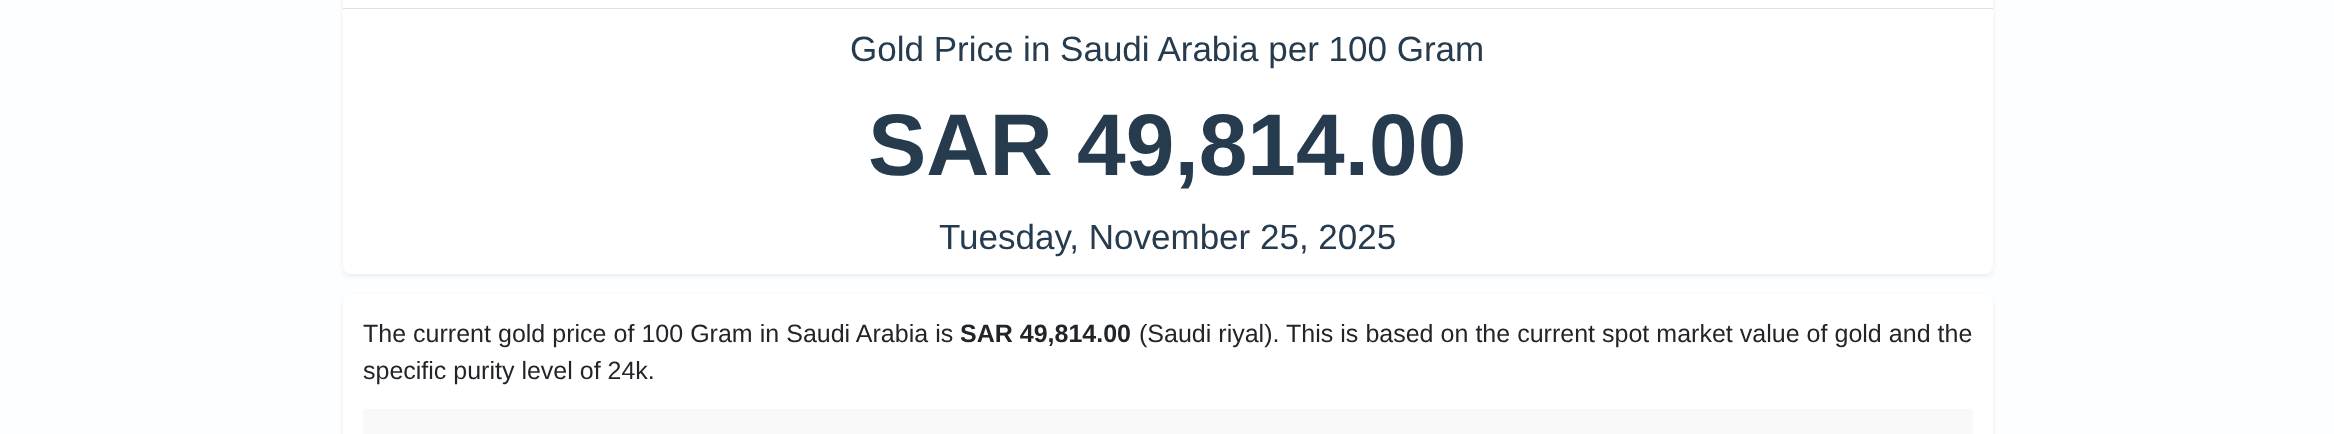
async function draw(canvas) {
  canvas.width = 2334;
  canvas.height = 434;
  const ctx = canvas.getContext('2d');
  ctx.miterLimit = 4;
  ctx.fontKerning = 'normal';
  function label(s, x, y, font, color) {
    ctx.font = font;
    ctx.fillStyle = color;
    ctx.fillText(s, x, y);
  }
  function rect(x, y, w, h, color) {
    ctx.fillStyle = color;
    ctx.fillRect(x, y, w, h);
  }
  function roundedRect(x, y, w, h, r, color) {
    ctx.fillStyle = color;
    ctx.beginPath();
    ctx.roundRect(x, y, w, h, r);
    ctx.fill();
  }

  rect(0, 0, 2334, 434, '#fcfeff');
  ctx.fillStyle = '#00000012';
  ctx.filter = 'blur(2.5px)';
  ctx.beginPath();
  ctx.roundRect(343, -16, 1650, 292, 8);
  ctx.fill();
  ctx.filter = 'none';
  roundedRect(343, -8, 1650, 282, 8, '#fff');
  rect(343, 8, 1650, 1, '#dee2e6');
  label('Gold Price in Saudi Arabia per 100 Gram', 850, 61, '35px Liberation Sans', '#263c4e');
  label('SAR 49,814.00', 868, 175, 'bold 87.5px Liberation Sans', '#263c4e');
  label('Tuesday, November 25, 2025', 939, 249, '35px Liberation Sans', '#263c4e');
  ctx.fillStyle = '#00000012';
  ctx.filter = 'blur(2.5px)';
  ctx.beginPath();
  ctx.roundRect(343, 296, 1650, 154, 8);
  ctx.fill();
  ctx.filter = 'none';
  roundedRect(343, 294, 1650, 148, 8, '#fff');
  ctx.wordSpacing = '0.1px';
  label('The current gold price of 100 Gram in Saudi Arabia is', 363, 342, '25px Liberation Sans', '#212529');
  ctx.wordSpacing = '0px';
  label('SAR 49,814.00', 960, 342, 'bold 25px Liberation Sans', '#212529');
  ctx.wordSpacing = '0.1px';
  label('(Saudi riyal). This is based on the current spot market value of gold and the', 1139, 342, '25px Liberation Sans', '#212529');
  ctx.wordSpacing = '0px';
  label('specific purity level of 24k.', 363, 379, '25px Liberation Sans', '#212529');
  rect(363, 409, 1610, 25, '#f9f9f9');
}

draw(document.querySelector('canvas'));
